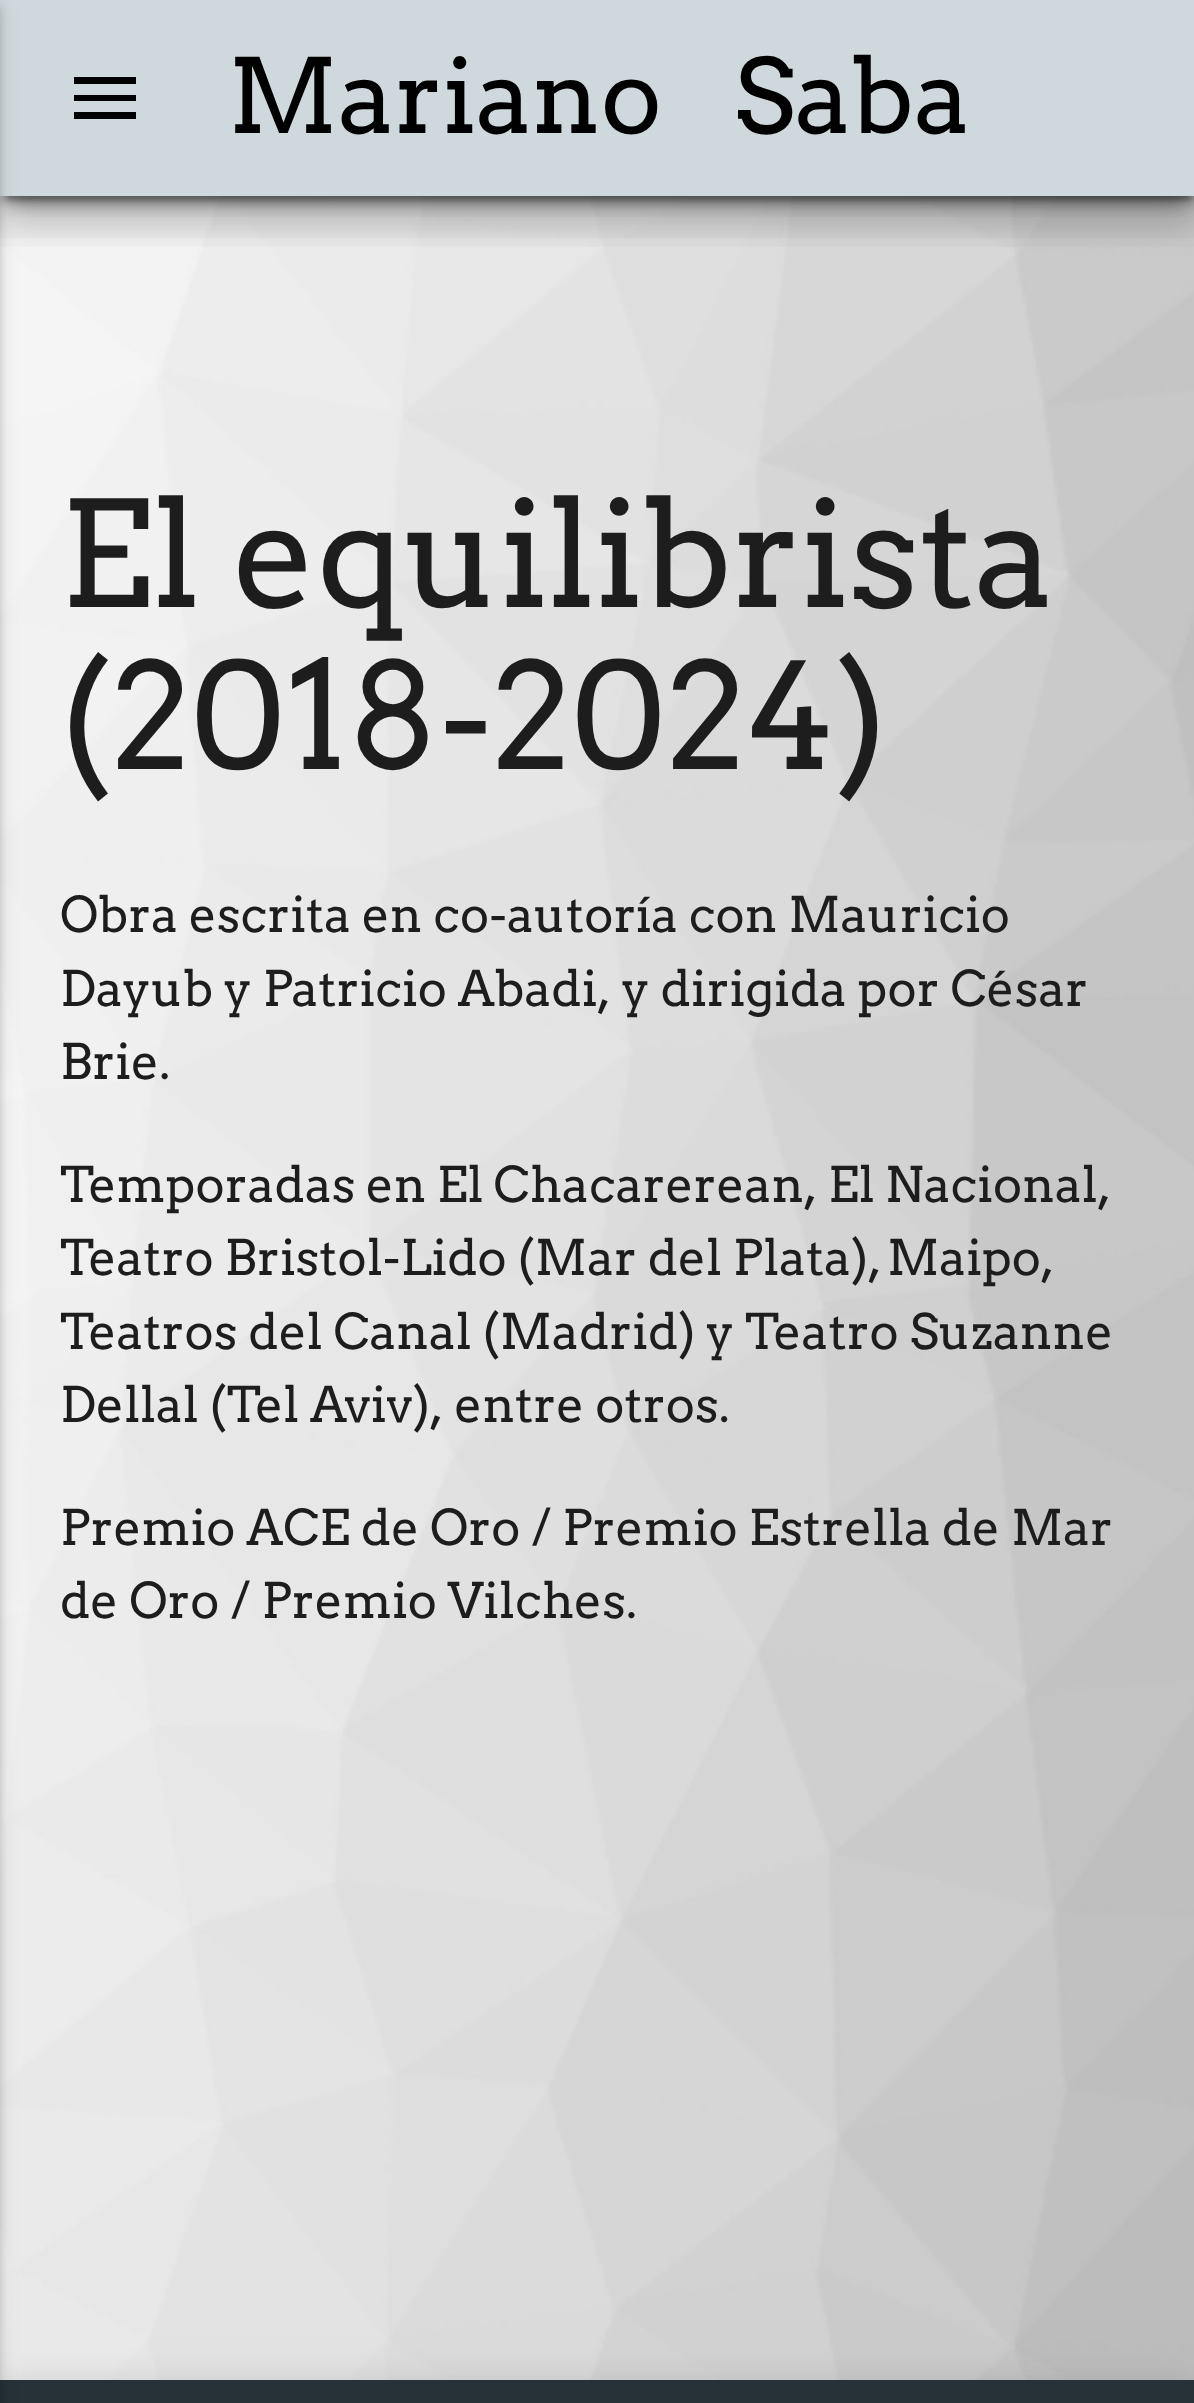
async function draw(canvas) {
  canvas.width = 1194;
  canvas.height = 2403;
  const ctx = canvas.getContext('2d');
  ctx.miterLimit = 4;
  ctx.fontKerning = 'normal';
  function label(s, x, y, font, color) {
    ctx.font = font;
    ctx.fillStyle = color;
    ctx.fillText(s, x, y);
  }
  function rect(x, y, w, h, color) {
    ctx.fillStyle = color;
    ctx.fillRect(x, y, w, h);
  }
  async function image(src, x, y, w, h) {
    const img = new Image();
    img.src = src;
    await img.decode();
    ctx.drawImage(img, x, y, w, h);
  }
  let path;

  rect(0, 0, 1194, 2403, '#fff');
  await image('assets/img1.png', 0, 196, 1194, 2184);
  await image('assets/img2.png', 0, 196, 1194, 2184);
  ctx.fillStyle = '#00000033';
  ctx.filter = 'blur(2px)';
  ctx.beginPath();
  ctx.rect(7, 18, 1183, 182);
  ctx.fill();
  ctx.filter = 'none';
  ctx.fillStyle = '#0000001f';
  ctx.filter = 'blur(9px)';
  ctx.beginPath();
  ctx.rect(0, 4, 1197, 196);
  ctx.fill();
  ctx.filter = 'none';
  ctx.fillStyle = '#00000024';
  ctx.filter = 'blur(3.5px)';
  ctx.beginPath();
  ctx.rect(0, 7, 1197, 196);
  ctx.fill();
  ctx.filter = 'none';
  rect(0, 0, 1194, 196, '#cfd8dc');
  ctx.save();
  ctx.beginPath();
  ctx.rect(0, 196, 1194, 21);
  ctx.clip();
  ctx.fillStyle = '#0000004d';
  ctx.filter = 'blur(9px)';
  ctx.beginPath();
  ctx.rect(11, 28, 1176, 175);
  ctx.fill();
  ctx.filter = 'none';
  ctx.restore();
  ctx.save();
  ctx.beginPath();
  ctx.rect(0, 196, 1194, 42);
  ctx.clip();
  ctx.fillStyle = '#0000001f';
  ctx.filter = 'blur(24.5px)';
  ctx.beginPath();
  ctx.rect(-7, 4, 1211, 210);
  ctx.fill();
  ctx.filter = 'none';
  ctx.restore();
  ctx.save();
  ctx.beginPath();
  ctx.rect(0, 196, 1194, 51);
  ctx.clip();
  ctx.fillStyle = '#00000024';
  ctx.filter = 'blur(17.5px)';
  ctx.beginPath();
  ctx.rect(-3, 25, 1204, 203);
  ctx.fill();
  ctx.filter = 'none';
  ctx.restore();
  ctx.fillStyle = '#0000001f';
  ctx.filter = 'blur(17.5px)';
  ctx.beginPath();
  ctx.rect(0, 2384, 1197, 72);
  ctx.fill();
  ctx.filter = 'none';
  rect(0, 2380, 1194, 23, '#263238');
  ctx.fillStyle = '#0000001f';
  ctx.filter = 'blur(9px)';
  ctx.beginPath();
  ctx.rect(-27, 4, 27, 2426);
  ctx.fill();
  ctx.filter = 'none';
  ctx.fillStyle = '#00000024';
  ctx.filter = 'blur(3.5px)';
  ctx.beginPath();
  ctx.rect(-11, 7, 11, 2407);
  ctx.fill();
  ctx.filter = 'none';
  ctx.fillStyle = '#000';
  path = new Path2D('M74 77H136V84H74ZM74 101V95H136V101ZM74 119V112H136V119Z');
  ctx.fill(path);
  ctx.wordSpacing = '49px';
  label('Mariano Saba', 228, 133, '103px Arvo', '#000');
  ctx.wordSpacing = '0px';
  label('El equilibrista', 60, 607, '147px Arvo', '#1d1d1d');
  label('(2018-2024)', 60, 769, '147px Arvo', '#1d1d1d');
  label('Obra escrita en co-autoría con Mauricio', 60, 932, '49px Arvo', '#1d1d1d');
  label('Dayub y Patricio Abadi, y dirigida por César', 60, 1006, '49px Arvo', '#1d1d1d');
  label('Brie.', 60, 1079, '49px Arvo', '#1d1d1d');
  ctx.wordSpacing = '-0.5px';
  label('Temporadas en El Chacarerean, El Nacional,', 60, 1202, '49px Arvo', '#1d1d1d');
  ctx.wordSpacing = '0px';
  label('Teatro Bristol-Lido (Mar del Plata),', 60, 1275, '49px Arvo', '#1d1d1d');
  label('Maipo,', 887, 1275, '49px Arvo', '#1d1d1d');
  label('Teatros del Canal (Madrid) y Teatro Suzanne', 60, 1349, '49px Arvo', '#1d1d1d');
  label('Dellal (Tel Aviv), entre otros.', 60, 1422, '49px Arvo', '#1d1d1d');
  label('Premio ACE de Oro / Premio Estrella de Mar', 60, 1545, '49px Arvo', '#1d1d1d');
  label('de Oro / Premio Vilches.', 60, 1618, '49px Arvo', '#1d1d1d');
}

draw(document.querySelector('canvas'));
